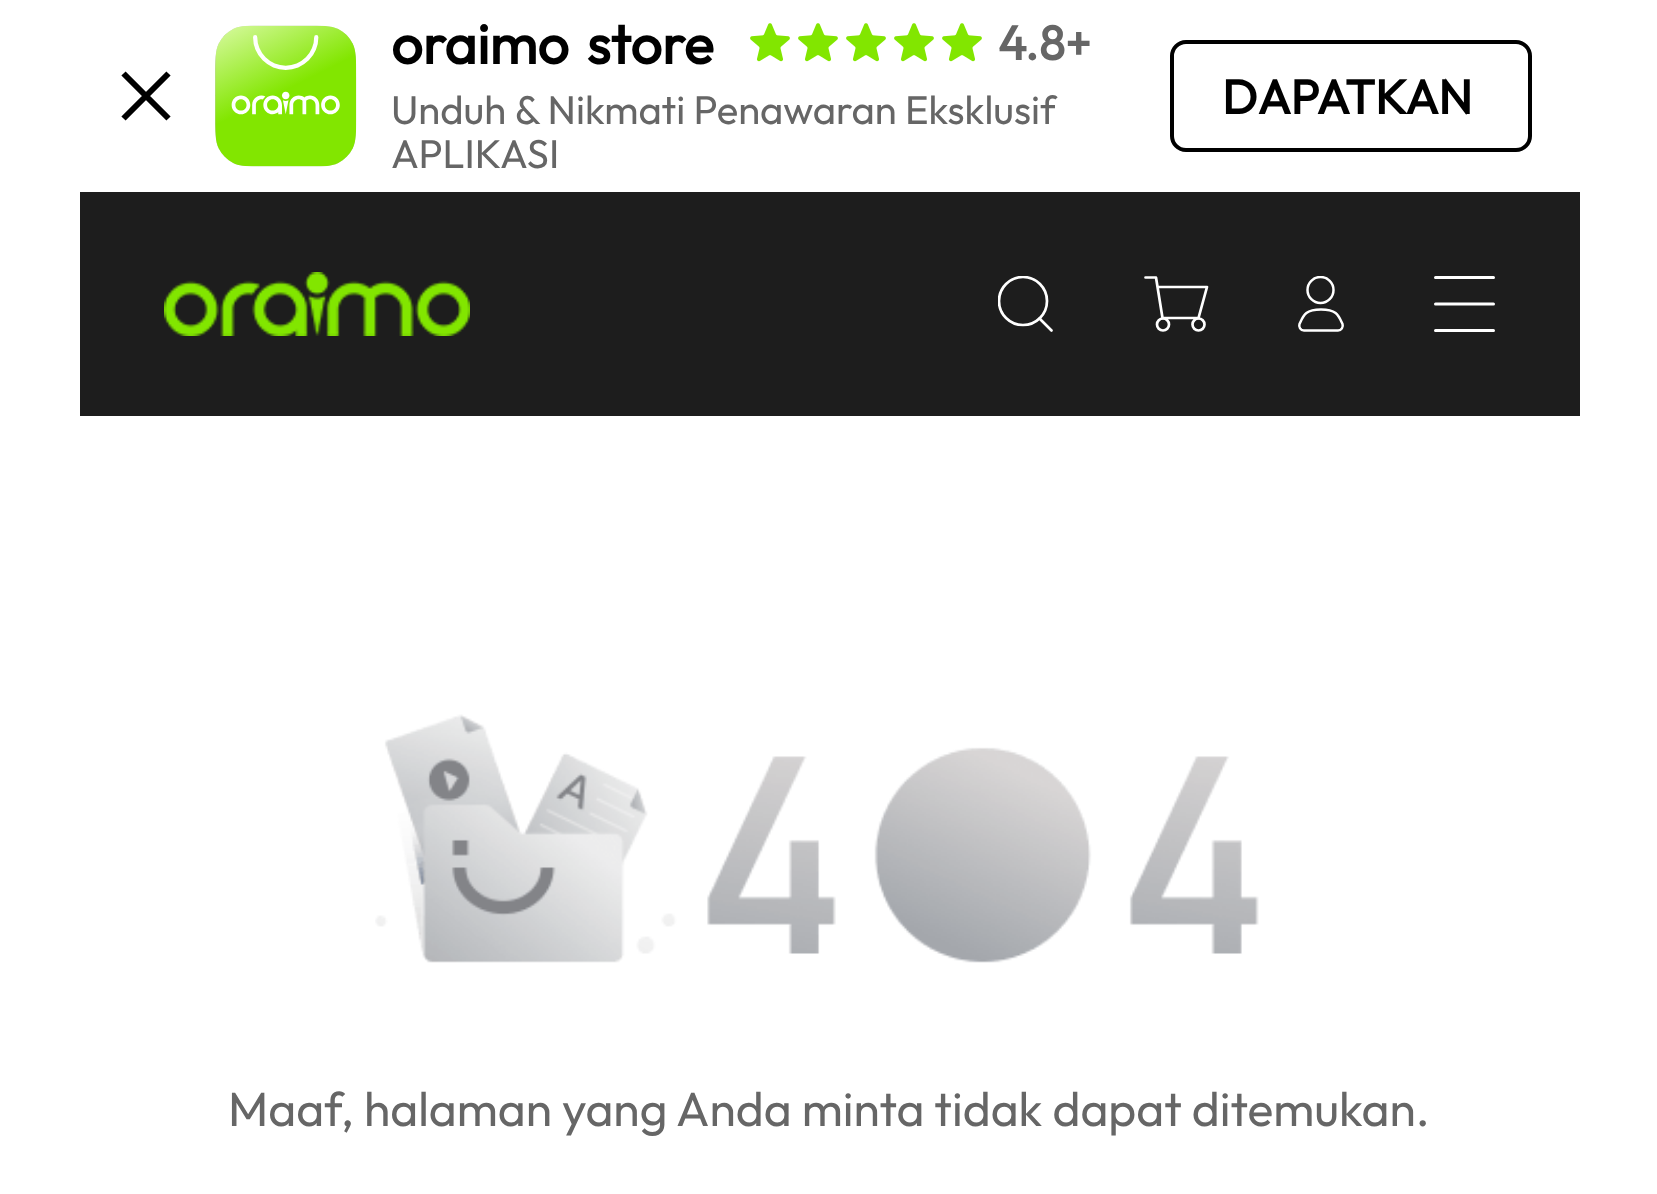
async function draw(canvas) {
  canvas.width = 1657;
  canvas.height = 1194;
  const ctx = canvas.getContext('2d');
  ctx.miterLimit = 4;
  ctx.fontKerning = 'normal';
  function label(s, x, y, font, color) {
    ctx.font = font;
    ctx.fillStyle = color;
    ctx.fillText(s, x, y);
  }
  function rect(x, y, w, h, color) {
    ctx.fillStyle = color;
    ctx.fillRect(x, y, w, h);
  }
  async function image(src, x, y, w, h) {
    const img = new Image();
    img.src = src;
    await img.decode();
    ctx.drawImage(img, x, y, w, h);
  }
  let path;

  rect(0, 0, 1657, 1194, '#fff');
  path = new Path2D('M123.5 73.5L168.5 118.5M168.5 73.5L123.5 118.5');
  ctx.strokeStyle = '#000';
  ctx.lineWidth = 6;
  ctx.stroke(path);
  await image('assets/img1.png', 215, 25, 142, 142);
  ctx.wordSpacing = '6px';
  label('oraimo store', 391, 64, 'bold 56px Outfit', '#000');
  await image('assets/img2.png', 750, 23, 40, 39);
  await image('assets/img2.png', 798, 23, 40, 39);
  await image('assets/img2.png', 846, 23, 40, 39);
  await image('assets/img2.png', 894, 23, 40, 39);
  await image('assets/img2.png', 942, 23, 40, 39);
  ctx.wordSpacing = '0px';
  label('4.8+', 998, 60, 'bold 48px Outfit', '#666');
  label('Unduh & Nikmati Penawaran Eksklusif', 391, 124, '40px Outfit', '#666');
  label('APLIKASI', 391, 168, '40px Outfit', '#666');
  ctx.beginPath();
  ctx.roundRect(1172, 42, 358, 108, 14);
  ctx.lineWidth = 4;
  ctx.stroke();
  label('DAPATKAN', 1222, 114, 'bold 48px Outfit', '#000');
  rect(80, 192, 1500, 224, '#1d1d1d');
  await image('assets/img3.png', 164, 272, 306, 64);
  ctx.save();
  ctx.beginPath();
  ctx.rect(998, 276, 56, 56);
  ctx.clip();
  ctx.beginPath();
  ctx.arc(1023, 301, 24, 0, 2 * Math.PI);
  ctx.strokeStyle = '#fff';
  ctx.lineWidth = 2.7;
  ctx.stroke();
  ctx.restore();
  path = new Path2D('M1051.5 330.5L1039.5 318.5');
  ctx.strokeStyle = '#fff';
  ctx.lineWidth = 2.7;
  ctx.lineCap = 'round';
  ctx.lineJoin = 'round';
  ctx.stroke(path);
  path = new Path2D('M1145.5 277.5H1156L1162.5 318H1198.5L1207 287H1157.5');
  ctx.stroke(path);
  ctx.beginPath();
  ctx.arc(1163, 324.5, 6, 0, 2 * Math.PI);
  ctx.stroke();
  ctx.beginPath();
  ctx.arc(1198.5, 324.5, 6, 0, 2 * Math.PI);
  ctx.stroke();
  ctx.save();
  ctx.beginPath();
  ctx.rect(1298, 276, 46, 56);
  ctx.clip();
  ctx.beginPath();
  ctx.arc(1320.5, 290, 13, 0, 2 * Math.PI);
  ctx.lineWidth = 2.5;
  ctx.stroke();
  ctx.restore();
  path = new Path2D('M1338 330.5C1341.5 330.5 1343.5 327 1342.5 324C1338.5 315.5 1337 309.5 1321 309.5C1305 309.5 1303.5 315.5 1299.5 324C1298.5 327 1300.5 330.5 1304 330.5Z');
  ctx.lineWidth = 2.5;
  ctx.stroke(path);
  path = new Path2D('M1493.5 277.5H1435.5M1493.5 304H1435.5M1493.5 330.5H1435.5');
  ctx.lineWidth = 3;
  ctx.stroke(path);
  await image('assets/img4.png', 375, 714, 884, 249);
  label('Maaf, halaman yang Anda minta tidak dapat ditemukan.', 228, 1126, '48px Outfit', '#666');
}

draw(document.querySelector('canvas'));
